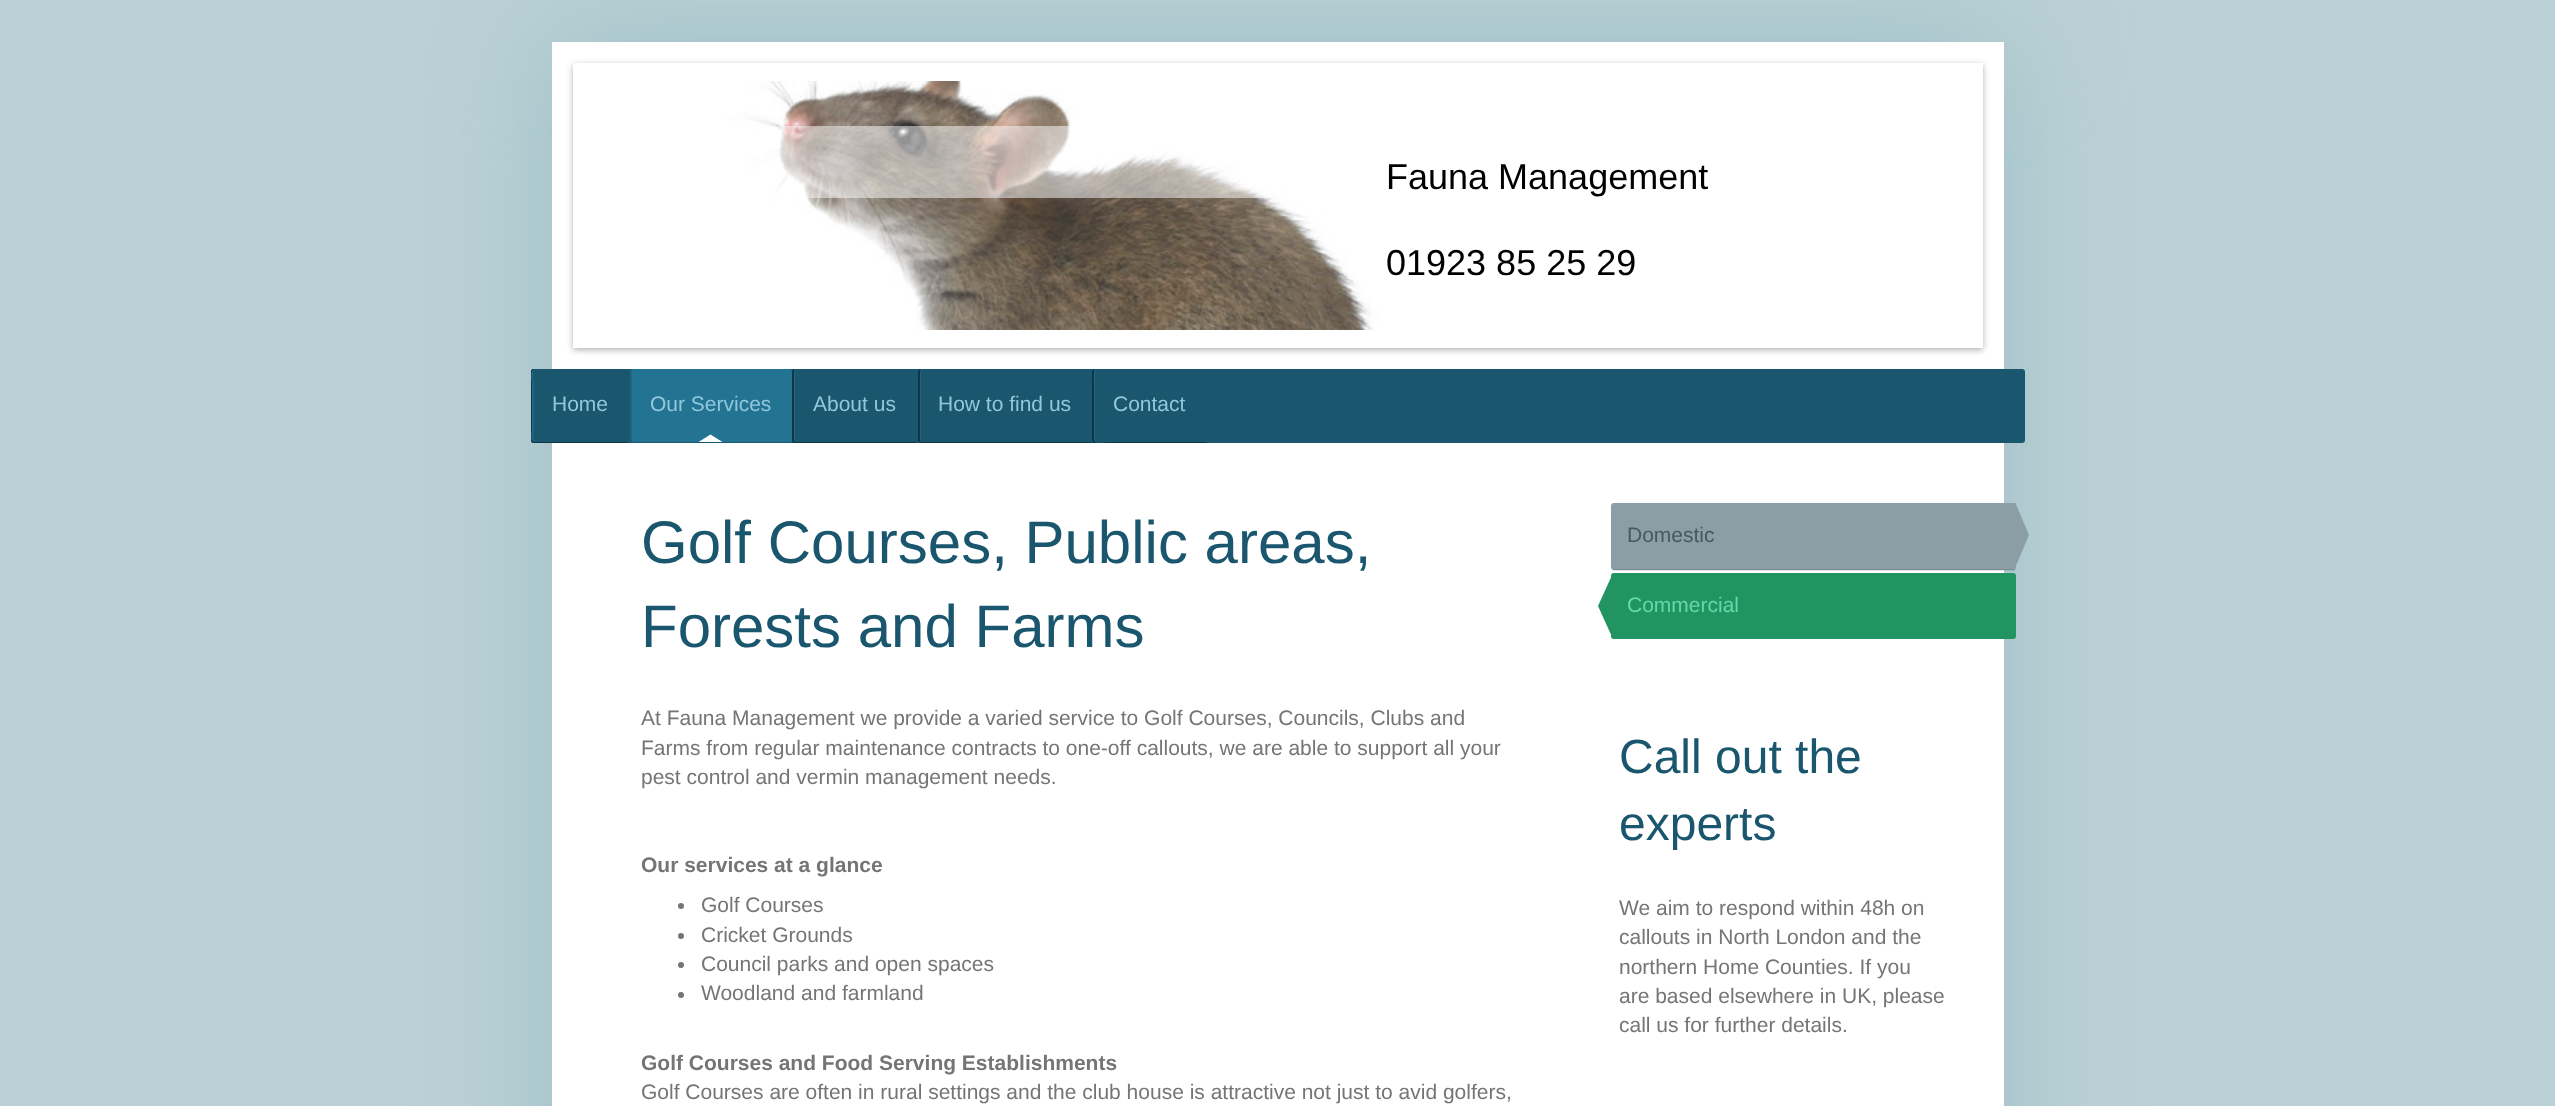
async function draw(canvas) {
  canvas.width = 2555;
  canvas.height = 1106;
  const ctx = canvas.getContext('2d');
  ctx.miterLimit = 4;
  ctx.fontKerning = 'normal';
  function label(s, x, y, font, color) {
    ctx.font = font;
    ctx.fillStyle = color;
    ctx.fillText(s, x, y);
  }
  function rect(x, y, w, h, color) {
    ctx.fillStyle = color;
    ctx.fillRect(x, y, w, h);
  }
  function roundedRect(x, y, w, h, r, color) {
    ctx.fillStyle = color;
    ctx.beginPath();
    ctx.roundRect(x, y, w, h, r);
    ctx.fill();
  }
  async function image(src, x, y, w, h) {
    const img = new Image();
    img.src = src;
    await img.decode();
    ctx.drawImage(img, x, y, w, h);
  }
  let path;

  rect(0, 0, 2555, 1106, '#bad1d6');
  ctx.fillStyle = '#9dbec5';
  ctx.filter = 'blur(60px)';
  ctx.beginPath();
  ctx.rect(552, 42, 1452, 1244);
  ctx.fill();
  ctx.filter = 'none';
  rect(552, 42, 1452, 1064, '#fff');
  ctx.fillStyle = '#0000004d';
  ctx.filter = 'blur(3px)';
  ctx.beginPath();
  ctx.rect(573, 65, 1410, 285);
  ctx.fill();
  ctx.filter = 'none';
  ctx.strokeStyle = '#fff';
  ctx.lineWidth = 18;
  ctx.strokeRect(582, 72, 1392, 267);
  await image('assets/img1.png', 591, 81, 1374, 249);
  rect(759, 126, 516, 72, '#ffffff80');
  label('Fauna Management', 1386, 189, '36px Liberation Sans', '#000');
  label('01923 85 25 29', 1386, 275, '36px Liberation Sans', '#000');
  roundedRect(531, 369, 1494, 74, 3, '#1a566e');
  ctx.fillStyle = '#1f6683';
  path = new Path2D('M534 369C532 369 531 370 531 372V440C531 442 532 443 534 443H626C627 443 628 443 628 442H537C531 442 534 431 534 429V383C534 383 531 369 537 369Z');
  ctx.fill(path);
  ctx.fillStyle = '#103645';
  path = new Path2D('M534 369C532 369 531 370 531 372V440C531 442 532 443 534 443H626C627 443 628 443 628 442H536C529 442 532 434 532 429V383C532 380 529 369 536 369Z');
  ctx.fill(path);
  label('Home', 552, 411, '21px Liberation Sans', '#91c7dc');
  roundedRect(629, 369, 163, 74, 3, '#237393');
  ctx.fillStyle = '#1f6683';
  path = new Path2D('M632 369C630 369 629 370 629 372V440C629 442 630 443 632 443H789C790 443 791 443 791 442H634C633 442 632 441 632 440V372C632 370 633 369 634 369Z');
  ctx.fill(path);
  ctx.fillStyle = '#1b5972';
  path = new Path2D('M632 369C630 369 629 370 629 372V440C629 442 630 443 632 443H789C790 443 791 443 791 442H633C631 442 630 441 630 440V372C630 370 631 369 633 369Z');
  ctx.fill(path);
  label('Our Services', 650, 411, '21px Liberation Sans', '#91c7dc');
  ctx.fillStyle = '#fff';
  path = new Path2D('M722.5 442H698.5L710.5 434.5Z');
  ctx.fill(path);
  ctx.fillStyle = '#1f6683';
  path = new Path2D('M795 369C793 369 792 370 792 372V440C792 442 793 443 795 443H915C916 443 917 443 917 442H798C796 442 795 441 795 440V372C795 370 796 369 798 369Z');
  ctx.fill(path);
  ctx.fillStyle = '#103645';
  path = new Path2D('M795 369C793 369 792 370 792 372V440C792 442 793 443 795 443H915C916 443 917 443 917 442H796C795 442 794 441 794 440V372C794 370 795 369 796 369Z');
  ctx.fill(path);
  label('About us', 813, 411, '21px Liberation Sans', '#91c7dc');
  ctx.fillStyle = '#1f6683';
  path = new Path2D('M921 369C919 369 918 370 918 372V440C918 442 919 443 921 443H1089C1090 443 1091 443 1091 442H924C922 442 921 441 921 440V372C921 370 922 369 924 369Z');
  ctx.fill(path);
  ctx.fillStyle = '#103645';
  path = new Path2D('M921 369C919 369 918 370 918 372V440C918 442 919 443 921 443H1089C1090 443 1091 443 1091 442H922C921 442 920 441 920 440V372C920 370 921 369 922 369Z');
  ctx.fill(path);
  label('How to find us', 938, 411, '21px Liberation Sans', '#91c7dc');
  ctx.fillStyle = '#1f6683';
  path = new Path2D('M1095 369C1093 369 1092 370 1092 372V440C1092 442 1093 443 1095 443H1205C1206 443 1207 443 1207 442H1098C1096 442 1095 441 1095 440V372C1095 370 1096 369 1098 369Z');
  ctx.fill(path);
  ctx.fillStyle = '#103645';
  path = new Path2D('M1095 369C1093 369 1092 370 1092 372V440C1092 442 1093 443 1095 443H1205C1206 443 1207 443 1207 442H1114C1092 442 1094 447 1094 429V383C1094 377 1093 369 1096 369Z');
  ctx.fill(path);
  label('Contact', 1113, 411, '21px Liberation Sans', '#91c7dc');
  label('Golf Courses, Public areas,', 641, 563, '60px Liberation Sans', '#1a566e');
  label('Forests and Farms', 641, 647, '60px Liberation Sans', '#1a566e');
  label('At Fauna Management we provide a varied service to Golf Courses, Councils, Clubs and', 641, 725, '21px Liberation Sans', '#757575');
  label('Farms from regular maintenance contracts to one-off callouts, we are able to support all your', 641, 755, '21px Liberation Sans', '#757575');
  label('pest control and vermin management needs.', 641, 784, '21px Liberation Sans', '#757575');
  label('Our services at a glance', 641, 872, 'bold 21px Liberation Sans', '#757575');
  ctx.beginPath();
  ctx.arc(681, 906, 3, 0, 2 * Math.PI);
  ctx.fill();
  label('Golf Courses', 701, 912, '21px Liberation Sans', '#757575');
  ctx.beginPath();
  ctx.arc(681, 936, 3, 0, 2 * Math.PI);
  ctx.fill();
  label('Cricket Grounds', 701, 942, '21px Liberation Sans', '#757575');
  ctx.beginPath();
  ctx.arc(681, 965, 3, 0, 2 * Math.PI);
  ctx.fill();
  label('Council parks and open spaces', 701, 971, '21px Liberation Sans', '#757575');
  ctx.beginPath();
  ctx.arc(681, 995, 3, 0, 2 * Math.PI);
  ctx.fill();
  label('Woodland and farmland', 701, 1000, '21px Liberation Sans', '#757575');
  label('Golf Courses and Food Serving Establishments', 641, 1070, 'bold 21px Liberation Sans', '#757575');
  label('Golf Courses are often in rural settings and the club house is attractive not just to avid golfers,', 641, 1099, '21px Liberation Sans', '#757575');
  roundedRect(1611, 503, 405, 67, 3, '#8b9ea6');
  rect(1613, 569, 402, 2, '#0000001a');
  label('Domestic', 1627, 542, '21px Liberation Sans', '#49585e');
  ctx.fillStyle = '#8b9ea6';
  path = new Path2D('M2015 568V502L2029 535Z');
  ctx.fill(path);
  roundedRect(1611, 573, 405, 66, 3, '#219462');
  path = new Path2D('M1613 573V639L1598 606Z');
  ctx.fill(path);
  label('Commercial', 1627, 612, '21px Liberation Sans', '#67d7a7');
  label('Call out the', 1619, 773, '48px Liberation Sans', '#1a566e');
  label('experts', 1619, 840, '48px Liberation Sans', '#1a566e');
  label('We aim to respond within 48h on', 1619, 915, '21px Liberation Sans', '#757575');
  label('callouts in North London and the', 1619, 944, '21px Liberation Sans', '#757575');
  label('northern Home Counties. If you', 1619, 974, '21px Liberation Sans', '#757575');
  label('are based elsewhere in UK, please', 1619, 1003, '21px Liberation Sans', '#757575');
  label('call us for further details.', 1619, 1032, '21px Liberation Sans', '#757575');
}

draw(document.querySelector('canvas'));
